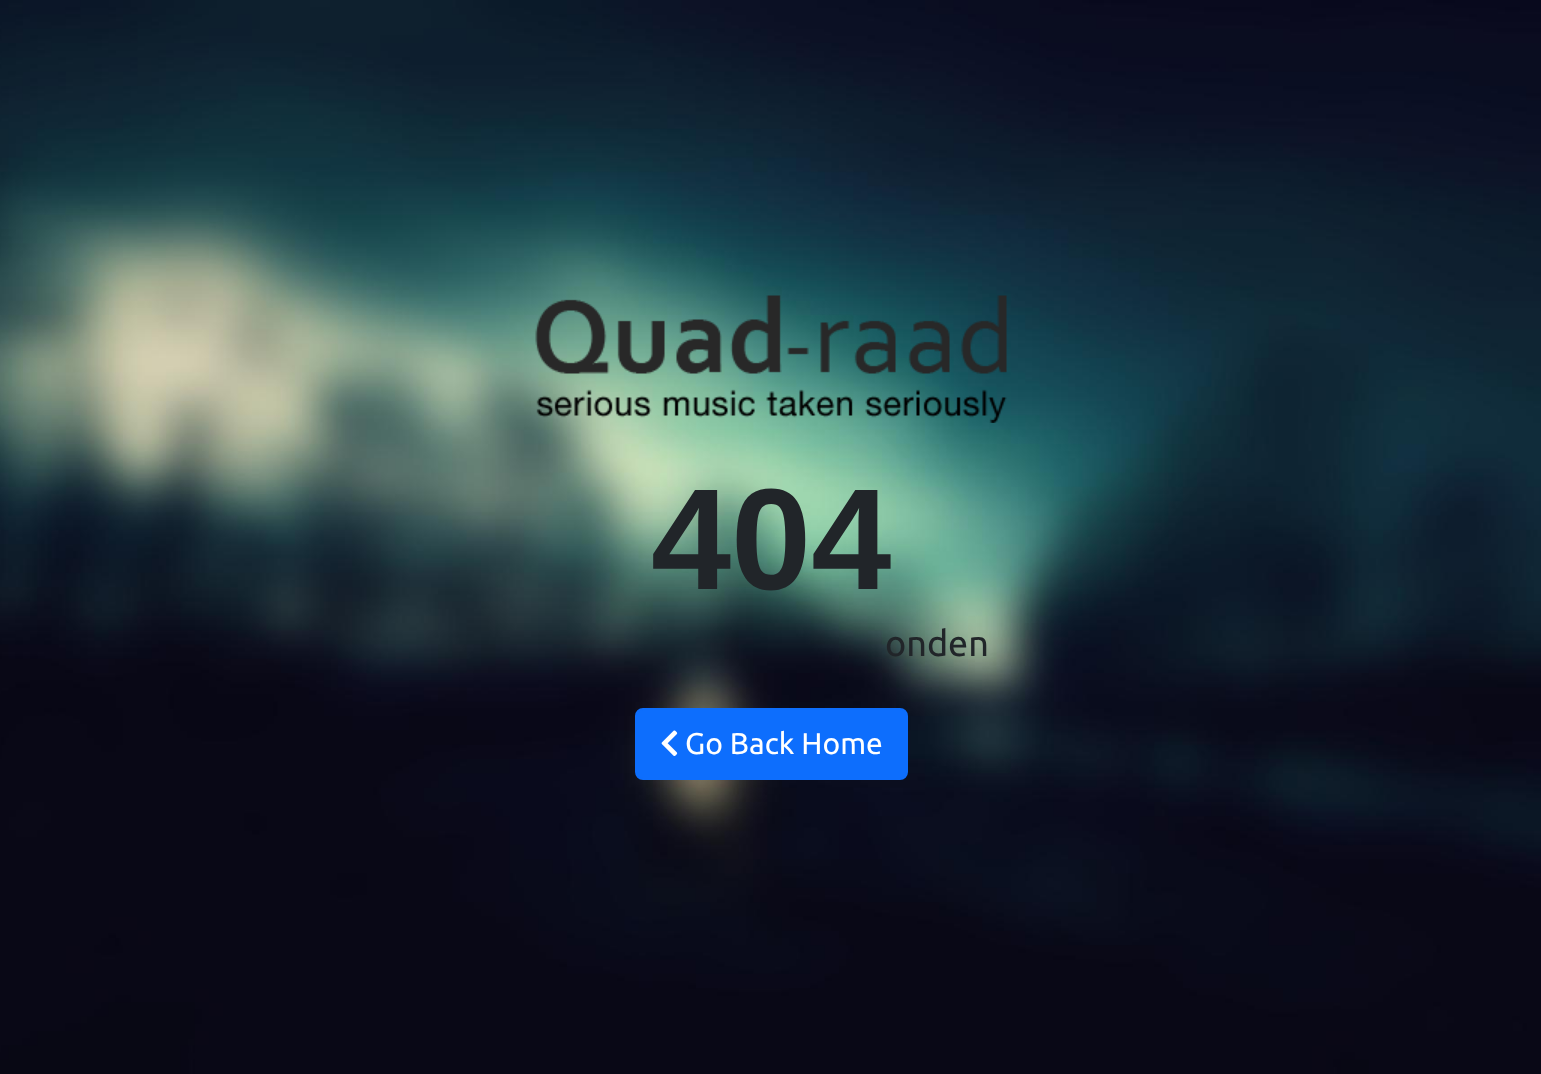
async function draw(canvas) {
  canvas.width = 1541;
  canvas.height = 1074;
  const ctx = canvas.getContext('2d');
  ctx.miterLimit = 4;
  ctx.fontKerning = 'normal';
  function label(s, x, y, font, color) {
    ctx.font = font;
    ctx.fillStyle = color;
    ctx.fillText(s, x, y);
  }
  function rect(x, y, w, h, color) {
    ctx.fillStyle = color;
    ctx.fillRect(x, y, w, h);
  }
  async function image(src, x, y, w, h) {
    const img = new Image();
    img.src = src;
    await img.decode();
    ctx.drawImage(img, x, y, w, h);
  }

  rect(0, 0, 1541, 1074, '#fff');
  await image('assets/img1.png', 0, 0, 1541, 1074);
  await image('assets/img2.png', 535, 295, 472, 128);
  label('404', 651, 589, 'bold 144px Liberation Sans', '#212529');
  label('onden', 885, 656, '36px Ubuntu', '#212529');
  ctx.fillStyle = '#0d6efd';
  ctx.beginPath();
  ctx.roundRect(636, 709, 271, 70, 7);
  ctx.fill();
  ctx.strokeStyle = '#0d6efd';
  ctx.lineWidth = 2;
  ctx.stroke();
  await image('assets/img3.png', 661, 730, 17, 26);
  label('Go Back Home', 685, 754, '30px Ubuntu', '#fff');
}

draw(document.querySelector('canvas'));
